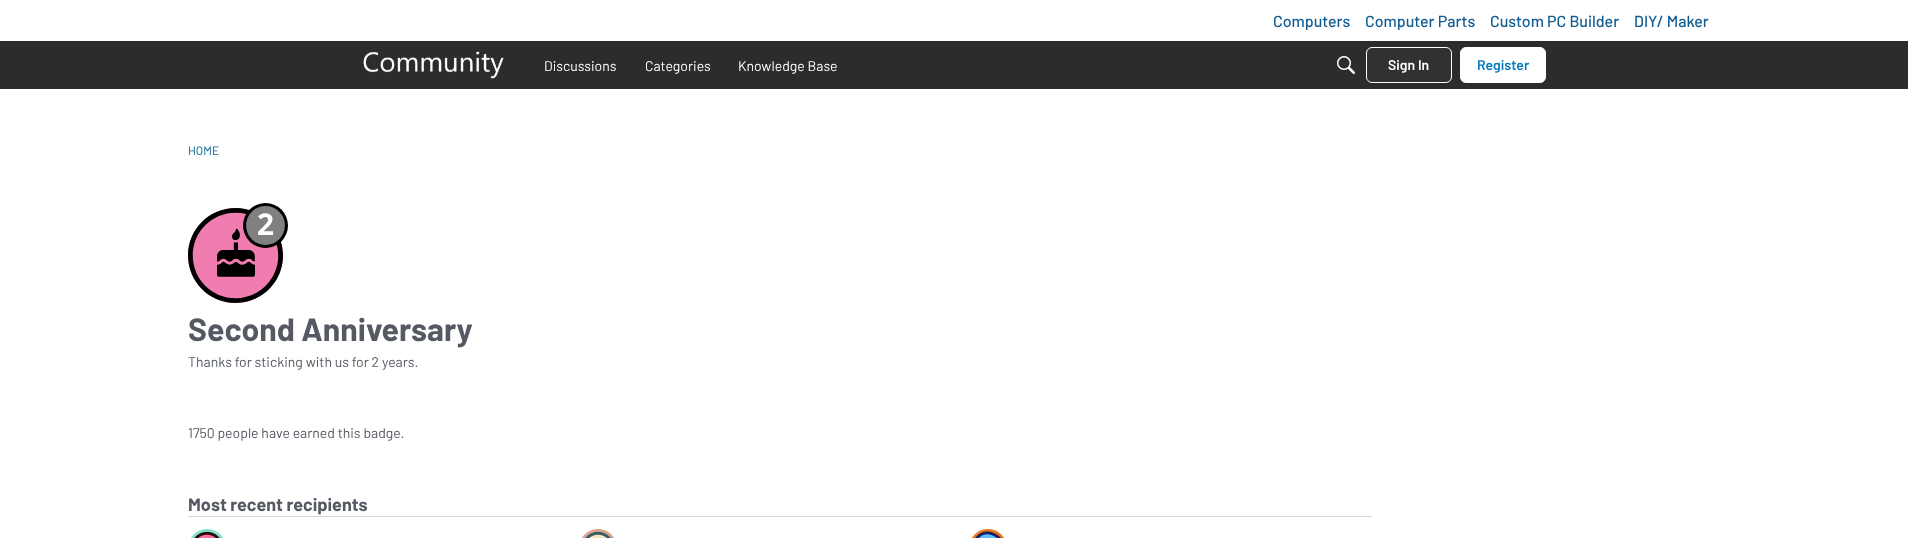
async function draw(canvas) {
  canvas.width = 1908;
  canvas.height = 538;
  const ctx = canvas.getContext('2d');
  ctx.miterLimit = 4;
  ctx.fontKerning = 'normal';
  function label(s, x, y, font, color) {
    ctx.font = font;
    ctx.fillStyle = color;
    ctx.fillText(s, x, y);
  }
  function rect(x, y, w, h, color) {
    ctx.fillStyle = color;
    ctx.fillRect(x, y, w, h);
  }
  async function image(src, x, y, w, h) {
    const img = new Image();
    img.src = src;
    await img.decode();
    ctx.drawImage(img, x, y, w, h);
  }

  rect(0, 0, 1908, 538, '#fff');
  label('Computers', 1273, 27, '500 16px Barlow', '#135d93');
  label('Computer Parts', 1365, 27, '500 16px Barlow', '#135d93');
  label('Custom PC Builder', 1490, 27, '500 16px Barlow', '#135d93');
  label('DIY/ Maker', 1634, 27, '500 16px Barlow', '#135d93');
  rect(0, 41, 1908, 48, '#2c2c2c');
  await image('assets/img1.png', 363, 51, 141, 28);
  label('Discussions', 544, 71, '14px Barlow', '#fff');
  label('Categories', 645, 71, '14px Barlow', '#fff');
  label('Knowledge Base', 738, 71, '14px Barlow', '#fff');
  await image('assets/img2.png', 1337, 56, 18, 18);
  ctx.fillStyle = '#303131';
  ctx.beginPath();
  ctx.roundRect(1366.5, 47.5, 85, 35, 5.5);
  ctx.fill();
  ctx.strokeStyle = '#fff';
  ctx.stroke();
  label('Sign In', 1388, 70, '600 14px Barlow', '#fff');
  ctx.beginPath();
  ctx.roundRect(1460.5, 47.5, 85, 35, 5.5);
  ctx.fill();
  ctx.stroke();
  label('Register', 1477, 70, '600 14px Barlow', '#037dbc');
  label('HOME', 188, 155, '12px Barlow', '#026496');
  await image('assets/img3.png', 188, 203, 100, 100);
  label('Second Anniversary', 188, 341, 'bold 32px Barlow', '#555a62');
  label('Thanks for sticking with us for 2 years.', 188, 367, '14px Barlow', '#555a62');
  label('1750 people have earned this badge.', 188, 438, '14px Barlow', '#555a62');
  rect(188, 516, 1184, 1, '#d6d7d9');
  label('Most recent recipients', 188, 511, 'bold 18px Barlow', '#555a62');
  await image('assets/img4.png', 191, 529, 32, 9);
  await image('assets/img5.png', 582, 529, 32, 9);
  await image('assets/img6.png', 972, 529, 32, 9);
}

draw(document.querySelector('canvas'));
